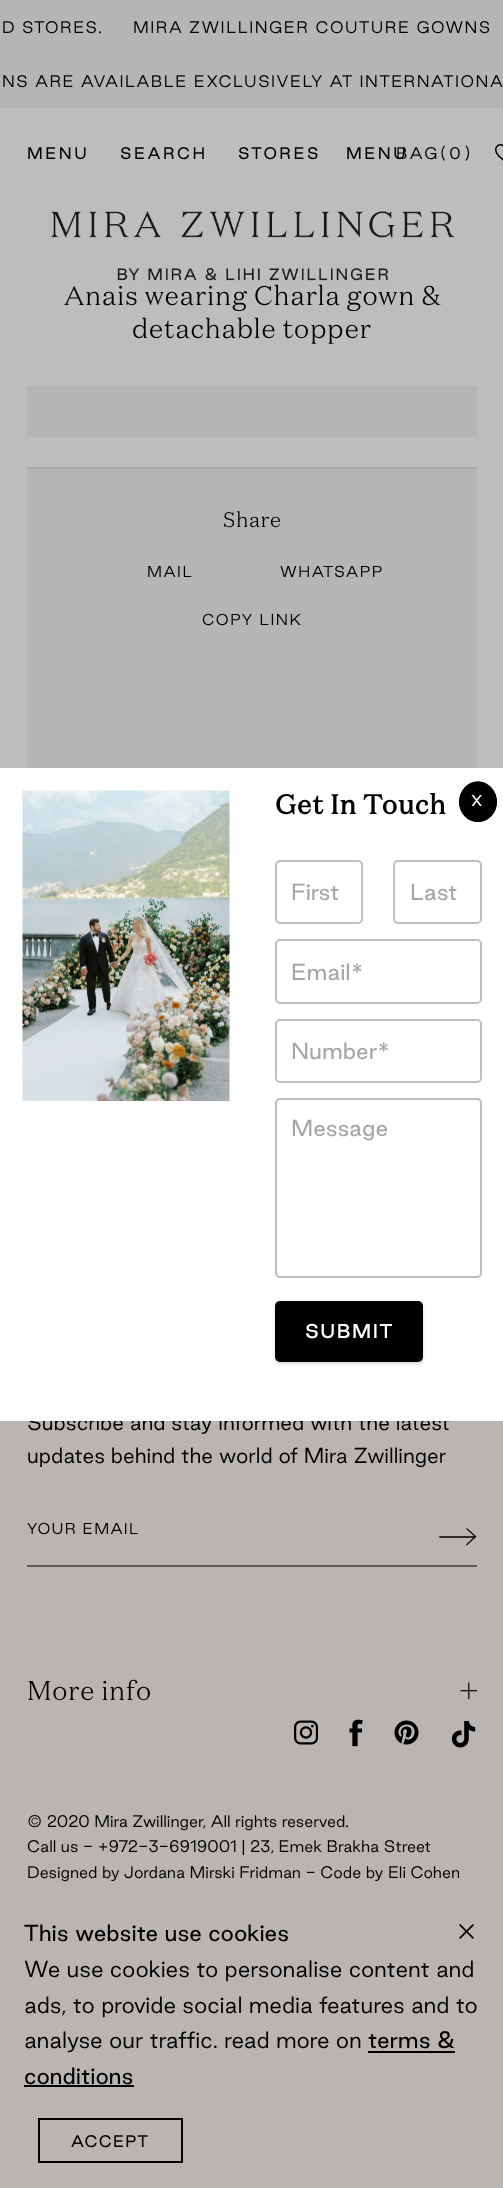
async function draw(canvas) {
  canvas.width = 503;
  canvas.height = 2188;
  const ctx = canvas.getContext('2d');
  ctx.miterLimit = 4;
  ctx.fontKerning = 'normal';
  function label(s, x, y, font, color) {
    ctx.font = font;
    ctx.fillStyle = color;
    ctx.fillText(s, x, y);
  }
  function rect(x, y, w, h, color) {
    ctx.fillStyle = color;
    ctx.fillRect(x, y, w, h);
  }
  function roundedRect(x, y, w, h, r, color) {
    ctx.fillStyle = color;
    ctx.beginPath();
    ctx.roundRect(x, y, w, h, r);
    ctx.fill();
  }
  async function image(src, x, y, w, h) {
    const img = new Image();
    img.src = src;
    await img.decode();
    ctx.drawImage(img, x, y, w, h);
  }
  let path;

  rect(0, 0, 503, 2188, '#b8b5b2');
  rect(0, 0, 503, 108, '#b5b5b5');
  ctx.letterSpacing = '1.5px';
  label('D STORES.', 2, 33, '300 15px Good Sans', '#000');
  label('MIRA ZWILLINGER COUTURE GOWNS', 133, 33, '300 15px Good Sans', '#000');
  label('NS ARE AVAILABLE EXCLUSIVELY AT INTERNATIONA', 2, 87, '300 15px Good Sans', '#000');
  rect(0, 108, 503, 660, '#bdbdbd');
  ctx.letterSpacing = '2.5px';
  label('MENU', 27, 159, '15px GoodSans', '#000');
  label('SEARCH', 120, 159, '15px GoodSans', '#000');
  label('STORES', 238, 159, '15px GoodSans', '#000');
  label('MENU', 346, 159, '15px GoodSans', '#000');
  label('BAG(0)', 396, 159, '300 15px Good Sans', '#000');
  await image('assets/img1.png', 495, 144, 8, 17);
  await image('assets/img2.png', 51, 211, 404, 70);
  ctx.letterSpacing = '0.75px';
  label('Anais wearing Charla gown &', 64, 305, '300 27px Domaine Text', '#000');
  label('detachable topper', 132, 338, '300 27px Domaine Text', '#000');
  rect(27, 386, 450, 51, '#b5b5b5');
  rect(27, 467, 450, 2, '#a8a8a8');
  rect(27, 469, 450, 299, '#b5b5b5');
  ctx.letterSpacing = '0.5px';
  label('Share', 223, 527, '300 21px Domaine Text', '#000');
  ctx.letterSpacing = '1.5px';
  label('MAIL', 147, 577, '300 14.25px Good Sans', '#000');
  label('WHATSAPP', 280, 577, '300 14.25px Good Sans', '#000');
  label('COPY LINK', 202, 625, '300 14.25px Good Sans', '#000');
  ctx.letterSpacing = '0px';
  label('Subscribe and stay informed with the latest', 27, 1430, '300 19.5px Good Sans', '#000');
  label('updates behind the world of Mira Zwillinger', 27, 1463, '300 19.5px Good Sans', '#000');
  rect(27, 1565, 450, 2, '#5d5c5a');
  ctx.letterSpacing = '1.25px';
  label('YOUR EMAIL', 27, 1534, '300 14.25px Good Sans', '#000');
  path = new Path2D('M466.5 1545L475.5 1536.5L466.5 1528.5');
  ctx.strokeStyle = '#000';
  ctx.lineWidth = 1.1;
  ctx.lineJoin = 'round';
  ctx.stroke(path);
  path = new Path2D('M475 1537H440');
  ctx.lineWidth = 1.4;
  ctx.lineCap = 'square';
  ctx.lineJoin = 'miter';
  ctx.stroke(path);
  ctx.letterSpacing = '0.75px';
  label('More info', 27, 1700, '300 27px Domaine Text', '#000');
  await image('assets/img3.png', 460, 1682, 17, 18);
  await image('assets/img4.png', 294, 1720, 24, 25);
  await image('assets/img5.png', 349, 1719, 14, 28);
  await image('assets/img6.png', 394, 1720, 25, 25);
  await image('assets/img7.png', 451, 1721, 25, 27);
  ctx.letterSpacing = '0px';
  label('© 2020 Mira Zwillinger, All rights reserved.', 27, 1827, '300 15px Good Sans', '#000');
  label('Call us - +972-3-6919001 | 23, Emek Brakha Street', 27, 1852, '300 15px Good Sans', '#000');
  label('Designed by Jordana Mirski Fridman - Code by Eli Cohen', 27, 1878, '300 15px Good Sans', '#000');
  label('This website use cookies', 24, 1941, '21px GoodSans', '#000');
  label('We use cookies to personalise content and', 24, 1977, '300 21px Good Sans', '#000');
  label('ads, to provide social media features and to', 24, 2013, '300 21px Good Sans', '#000');
  label('analyse our traffic. read more on', 24, 2048, '300 21px Good Sans', '#000');
  label('terms &', 368, 2048, '21px GoodSans', '#000');
  rect(368, 2051, 87, 2, '#000');
  label('conditions', 24, 2084, '21px GoodSans', '#000');
  rect(24, 2085, 110, 2, '#000');
  await image('assets/img8.png', 459, 1924, 15, 15);
  ctx.lineWidth = 2;
  ctx.strokeRect(39, 2119, 143, 43);
  ctx.letterSpacing = '1.25px';
  label('ACCEPT', 71, 2147, '15px GoodSans', '#000');
  rect(0, 768, 503, 653, '#fff');
  await image('assets/img9.png', 22, 790, 208, 311);
  ctx.letterSpacing = '0.75px';
  label('Get In Touch', 275, 814, 'bold 27px DomaineText', '#000');
  ctx.beginPath();
  ctx.roundRect(276, 861, 86, 62, 4);
  ctx.strokeStyle = '#bfbfbf';
  ctx.stroke();
  ctx.letterSpacing = '0px';
  label('First', 291, 900, '21px GoodSans', '#a6a6a6');
  ctx.beginPath();
  ctx.roundRect(394, 861, 87, 62, 4);
  ctx.stroke();
  label('Last', 410, 900, '21px GoodSans', '#a6a6a6');
  ctx.beginPath();
  ctx.roundRect(276, 940, 205, 63, 4);
  ctx.stroke();
  label('Email*', 291, 980, '21px GoodSans', '#a6a6a6');
  ctx.beginPath();
  ctx.roundRect(276, 1020, 205, 62, 4);
  ctx.stroke();
  label('Number*', 291, 1059, '21px GoodSans', '#a6a6a6');
  ctx.beginPath();
  ctx.roundRect(276, 1099, 205, 178, 4);
  ctx.stroke();
  label('Message', 291, 1136, '21px GoodSans', '#a6a6a6');
  ctx.fillStyle = '#00000026';
  ctx.filter = 'blur(1.5px)';
  ctx.beginPath();
  ctx.roundRect(275, 1302, 148, 62, 5);
  ctx.fill();
  ctx.filter = 'none';
  roundedRect(275, 1301, 148, 61, 5, '#000');
  ctx.letterSpacing = '1.5px';
  label('SUBMIT', 305, 1338, '500 18px Good Sans', '#fff');
  ctx.fillStyle = '#000';
  ctx.beginPath();
  ctx.ellipse(478, 802, 19, 20, 0, 0, 2 * Math.PI);
  ctx.fill();
  path = new Path2D('M478 782C487.5 782 496 791 496 802C496 812.5 487.5 821 478 821C468 821 460 812.5 460 802C460 791 468 782 478 782Z');
  ctx.strokeStyle = '#000';
  ctx.lineWidth = 1.5;
  ctx.lineCap = 'butt';
  ctx.stroke(path);
  ctx.letterSpacing = '1.25px';
  label('X', 471, 806, '14.25px GoodSans', '#fff');
}

draw(document.querySelector('canvas'));
